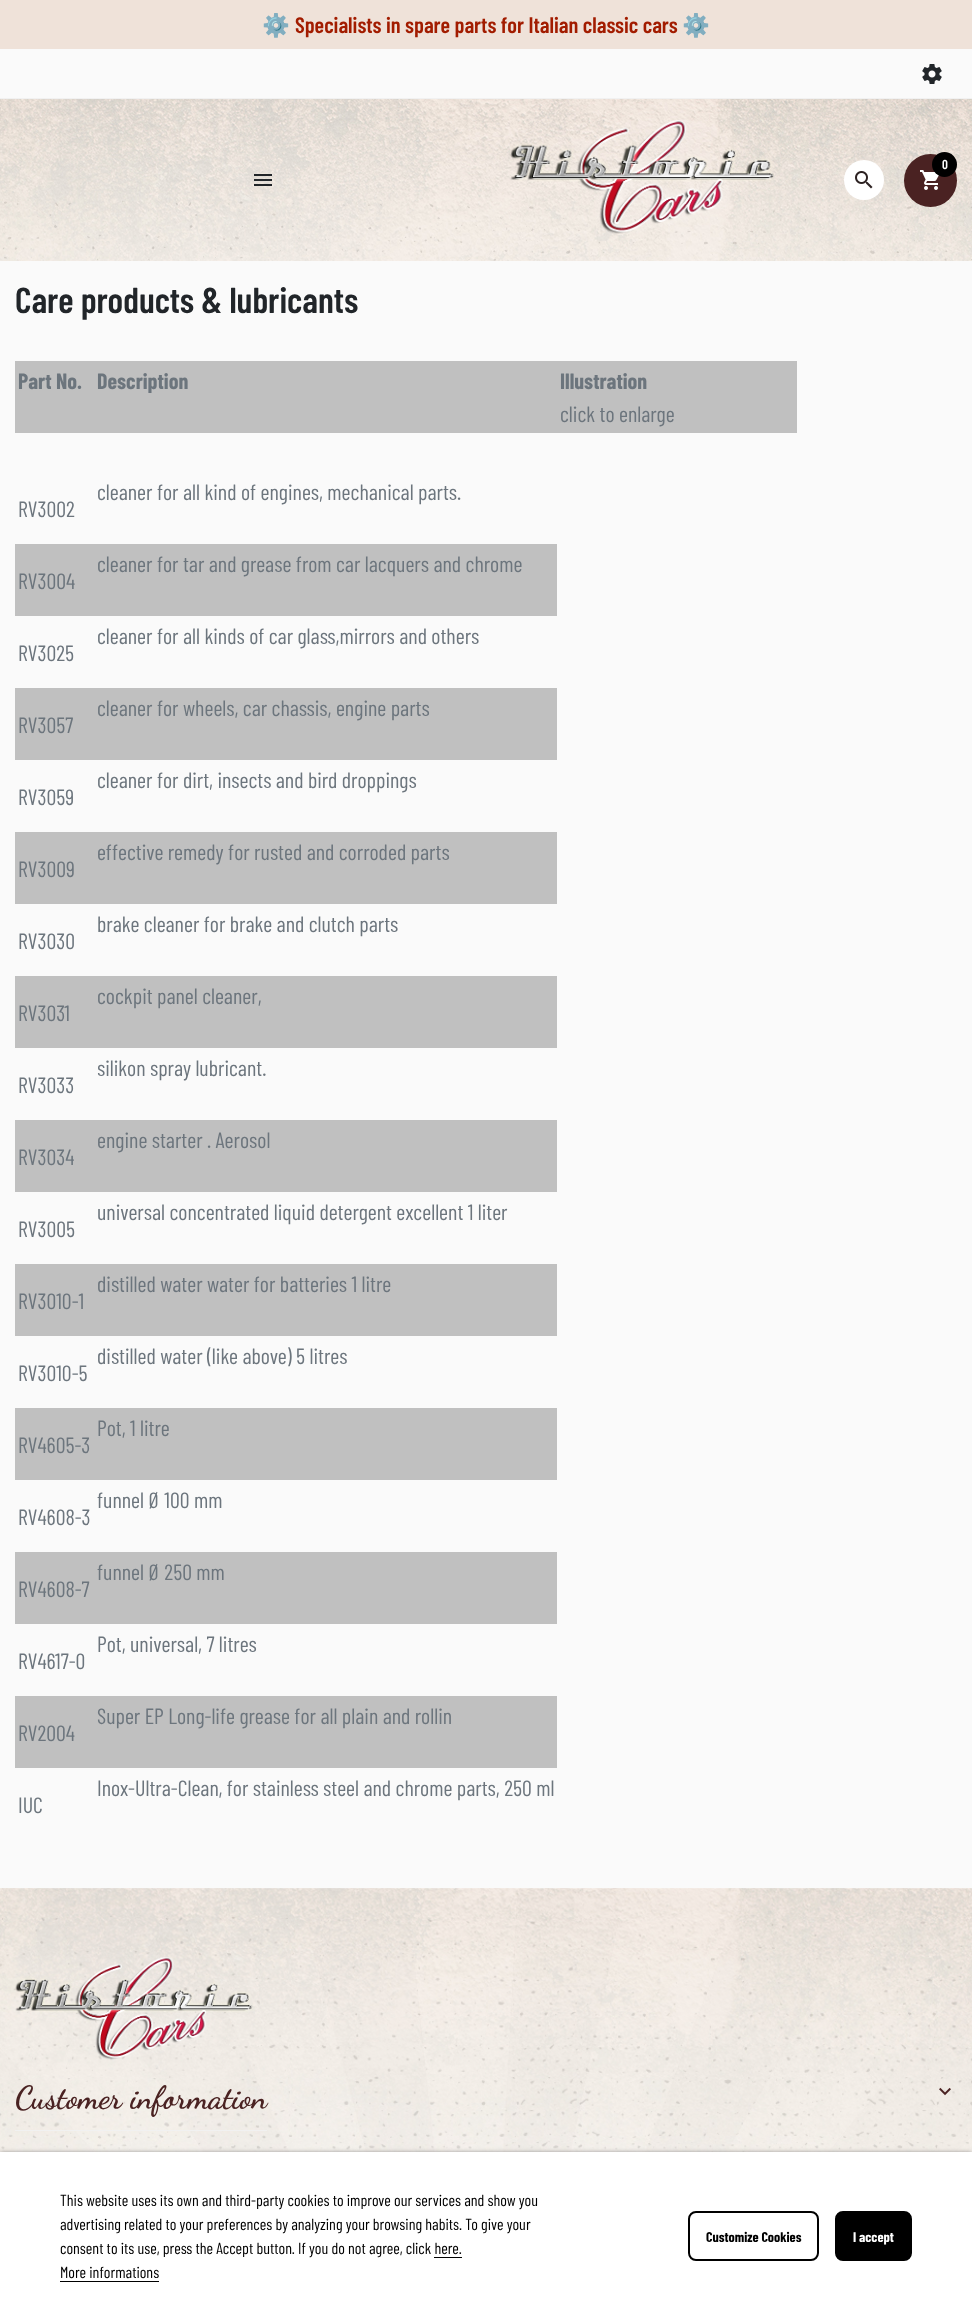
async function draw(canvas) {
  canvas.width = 972;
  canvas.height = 2320;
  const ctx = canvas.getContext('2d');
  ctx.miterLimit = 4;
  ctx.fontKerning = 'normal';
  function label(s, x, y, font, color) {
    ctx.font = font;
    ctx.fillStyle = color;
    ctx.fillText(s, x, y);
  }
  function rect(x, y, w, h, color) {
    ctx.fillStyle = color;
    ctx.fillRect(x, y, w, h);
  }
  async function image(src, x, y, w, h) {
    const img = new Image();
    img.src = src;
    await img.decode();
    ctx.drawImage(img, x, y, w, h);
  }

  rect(0, 0, 972, 2320, '#fafafa');
  rect(0, 0, 972, 49, '#efe2d9');
  label('⚙️', 262, 33, 'bold 22.4px Noto Color Emoji', '#a21c00');
  label('Specialists in spare parts for Italian classic cars', 295, 33, '600 22.4px Barlow Condensed', '#a21c00');
  label('⚙️', 682, 33, 'bold 22.4px Noto Color Emoji', '#a21c00');
  await image('assets/img1.png', 0, 99, 972, 162);
  rect(0, 98, 972, 1, '#f1f1f1');
  await image('assets/img2.png', 922, 64, 20, 20);
  await image('assets/img3.png', 254, 174, 18, 12);
  await image('assets/img4.png', 510, 120, 264, 114);
  ctx.fillStyle = '#fff';
  ctx.beginPath();
  ctx.arc(864, 180, 20, 0, 2 * Math.PI);
  ctx.fill();
  await image('assets/img5.png', 855, 171, 18, 18);
  ctx.fillStyle = '#4a2222';
  ctx.beginPath();
  ctx.arc(930.5, 180.5, 26.5, 0, 2 * Math.PI);
  ctx.fill();
  await image('assets/img6.png', 920, 170, 19, 20);
  ctx.fillStyle = '#000';
  ctx.beginPath();
  ctx.arc(944.5, 164.5, 12.5, 0, 2 * Math.PI);
  ctx.fill();
  label('0', 942, 169, '600 13px Barlow Condensed', '#fff');
  label('Care products & lubricants', 15, 313, '600 36px Barlow Condensed', '#212529');
  rect(15, 361, 782, 72, '#c0c0c0');
  label('Part No.', 18, 389, 'bold 22px Barlow Condensed', '#6c757d');
  label('Description', 97, 389, 'bold 22px Barlow Condensed', '#6c757d');
  label('Illustration', 560, 389, 'bold 22px Barlow Condensed', '#6c757d');
  label('click to enlarge', 560, 422, '22px Barlow Condensed', '#6c757d');
  label('cleaner for all kind of engines, mechanical parts.', 97, 500, '22px Barlow Condensed', '#6c757d');
  label('RV3002', 18, 517, '22px Barlow Condensed', '#6c757d');
  rect(15, 544, 542, 72, '#c0c0c0');
  label('cleaner for tar and grease from car lacquers and chrome', 97, 572, '22px Barlow Condensed', '#6c757d');
  label('RV3004', 18, 589, '22px Barlow Condensed', '#6c757d');
  label('cleaner for all kinds of car glass,mirrors and others', 97, 644, '22px Barlow Condensed', '#6c757d');
  label('RV3025', 18, 661, '22px Barlow Condensed', '#6c757d');
  rect(15, 688, 542, 72, '#c0c0c0');
  label('cleaner for wheels, car chassis, engine parts', 97, 716, '22px Barlow Condensed', '#6c757d');
  label('RV3057', 18, 733, '22px Barlow Condensed', '#6c757d');
  label('cleaner for dirt, insects and bird droppings', 97, 788, '22px Barlow Condensed', '#6c757d');
  label('RV3059', 18, 805, '22px Barlow Condensed', '#6c757d');
  rect(15, 832, 542, 72, '#c0c0c0');
  label('effective remedy for rusted and corroded parts', 97, 860, '22px Barlow Condensed', '#6c757d');
  label('RV3009', 18, 877, '22px Barlow Condensed', '#6c757d');
  label('brake cleaner for brake and clutch parts', 97, 932, '22px Barlow Condensed', '#6c757d');
  label('RV3030', 18, 949, '22px Barlow Condensed', '#6c757d');
  rect(15, 976, 542, 72, '#c0c0c0');
  label('cockpit panel cleaner,', 97, 1004, '22px Barlow Condensed', '#6c757d');
  label('RV3031', 18, 1021, '22px Barlow Condensed', '#6c757d');
  label('silikon spray lubricant.', 97, 1076, '22px Barlow Condensed', '#6c757d');
  label('RV3033', 18, 1093, '22px Barlow Condensed', '#6c757d');
  rect(15, 1120, 542, 72, '#c0c0c0');
  label('engine starter . Aerosol', 97, 1148, '22px Barlow Condensed', '#6c757d');
  label('RV3034', 18, 1165, '22px Barlow Condensed', '#6c757d');
  label('universal concentrated liquid detergent excellent 1 liter', 97, 1220, '22px Barlow Condensed', '#6c757d');
  label('RV3005', 18, 1237, '22px Barlow Condensed', '#6c757d');
  rect(15, 1264, 542, 72, '#c0c0c0');
  label('distilled water water for batteries 1 litre', 97, 1292, '22px Barlow Condensed', '#6c757d');
  label('RV3010-1', 18, 1309, '22px Barlow Condensed', '#6c757d');
  label('distilled water (like above) 5 litres', 97, 1364, '22px Barlow Condensed', '#6c757d');
  label('RV3010-5', 18, 1381, '22px Barlow Condensed', '#6c757d');
  rect(15, 1408, 542, 72, '#c0c0c0');
  label('Pot, 1 litre', 97, 1436, '22px Barlow Condensed', '#6c757d');
  label('RV4605-3', 18, 1453, '22px Barlow Condensed', '#6c757d');
  label('funnel Ø 100 mm', 97, 1508, '22px Barlow Condensed', '#6c757d');
  label('RV4608-3', 18, 1525, '22px Barlow Condensed', '#6c757d');
  rect(15, 1552, 542, 72, '#c0c0c0');
  label('funnel Ø 250 mm', 97, 1580, '22px Barlow Condensed', '#6c757d');
  label('RV4608-7', 18, 1597, '22px Barlow Condensed', '#6c757d');
  label('Pot, universal, 7 litres', 97, 1652, '22px Barlow Condensed', '#6c757d');
  label('RV4617-0', 18, 1669, '22px Barlow Condensed', '#6c757d');
  rect(15, 1696, 542, 72, '#c0c0c0');
  label('Super EP Long-life grease for all plain and rollin', 97, 1724, '22px Barlow Condensed', '#6c757d');
  label('RV2004', 18, 1741, '22px Barlow Condensed', '#6c757d');
  label('Inox-Ultra-Clean, for stainless steel and chrome parts, 250 ml', 97, 1796, '22px Barlow Condensed', '#6c757d');
  label('IUC', 18, 1813, '22px Barlow Condensed', '#6c757d');
  await image('assets/img7.png', 0, 1888, 972, 264);
  await image('assets/img8.png', 15, 1957, 238, 103);
  rect(15, 2130, 252, 1, '#f1f1f1');
  label('Customer information', 15, 2108, 'bold 32px Dancing Script', '#4a2222');
  await image('assets/img9.png', 939, 2087, 12, 9);
  ctx.fillStyle = '#707070';
  ctx.filter = 'blur(2.5px)';
  ctx.beginPath();
  ctx.rect(0, 2153, 972, 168);
  ctx.fill();
  ctx.filter = 'none';
  rect(0, 2152, 972, 168, '#fff');
  label('This website uses its own and third-party cookies to improve our services and show you', 60, 2206, '16px Barlow Condensed', '#000');
  label('advertising related to your preferences by analyzing your browsing habits. To give your', 60, 2230, '16px Barlow Condensed', '#000');
  label('consent to its use, press the Accept button. If you do not agree, click here.', 60, 2254, '16px Barlow Condensed', '#000');
  rect(434, 2257, 28, 1, '#000');
  label('More informations', 60, 2278, '16px Barlow Condensed', '#000');
  rect(60, 2281, 99, 1, '#000');
  ctx.beginPath();
  ctx.roundRect(689, 2212, 129, 48, 7);
  ctx.strokeStyle = '#000';
  ctx.lineWidth = 2;
  ctx.stroke();
  label('Customize Cookies', 706, 2242, 'bold 14px Barlow Condensed', '#000');
  ctx.beginPath();
  ctx.roundRect(836, 2212, 75, 48, 7);
  ctx.fill();
  ctx.stroke();
  label('I accept', 853, 2242, 'bold 14px Barlow Condensed', '#fff');
}

draw(document.querySelector('canvas'));
